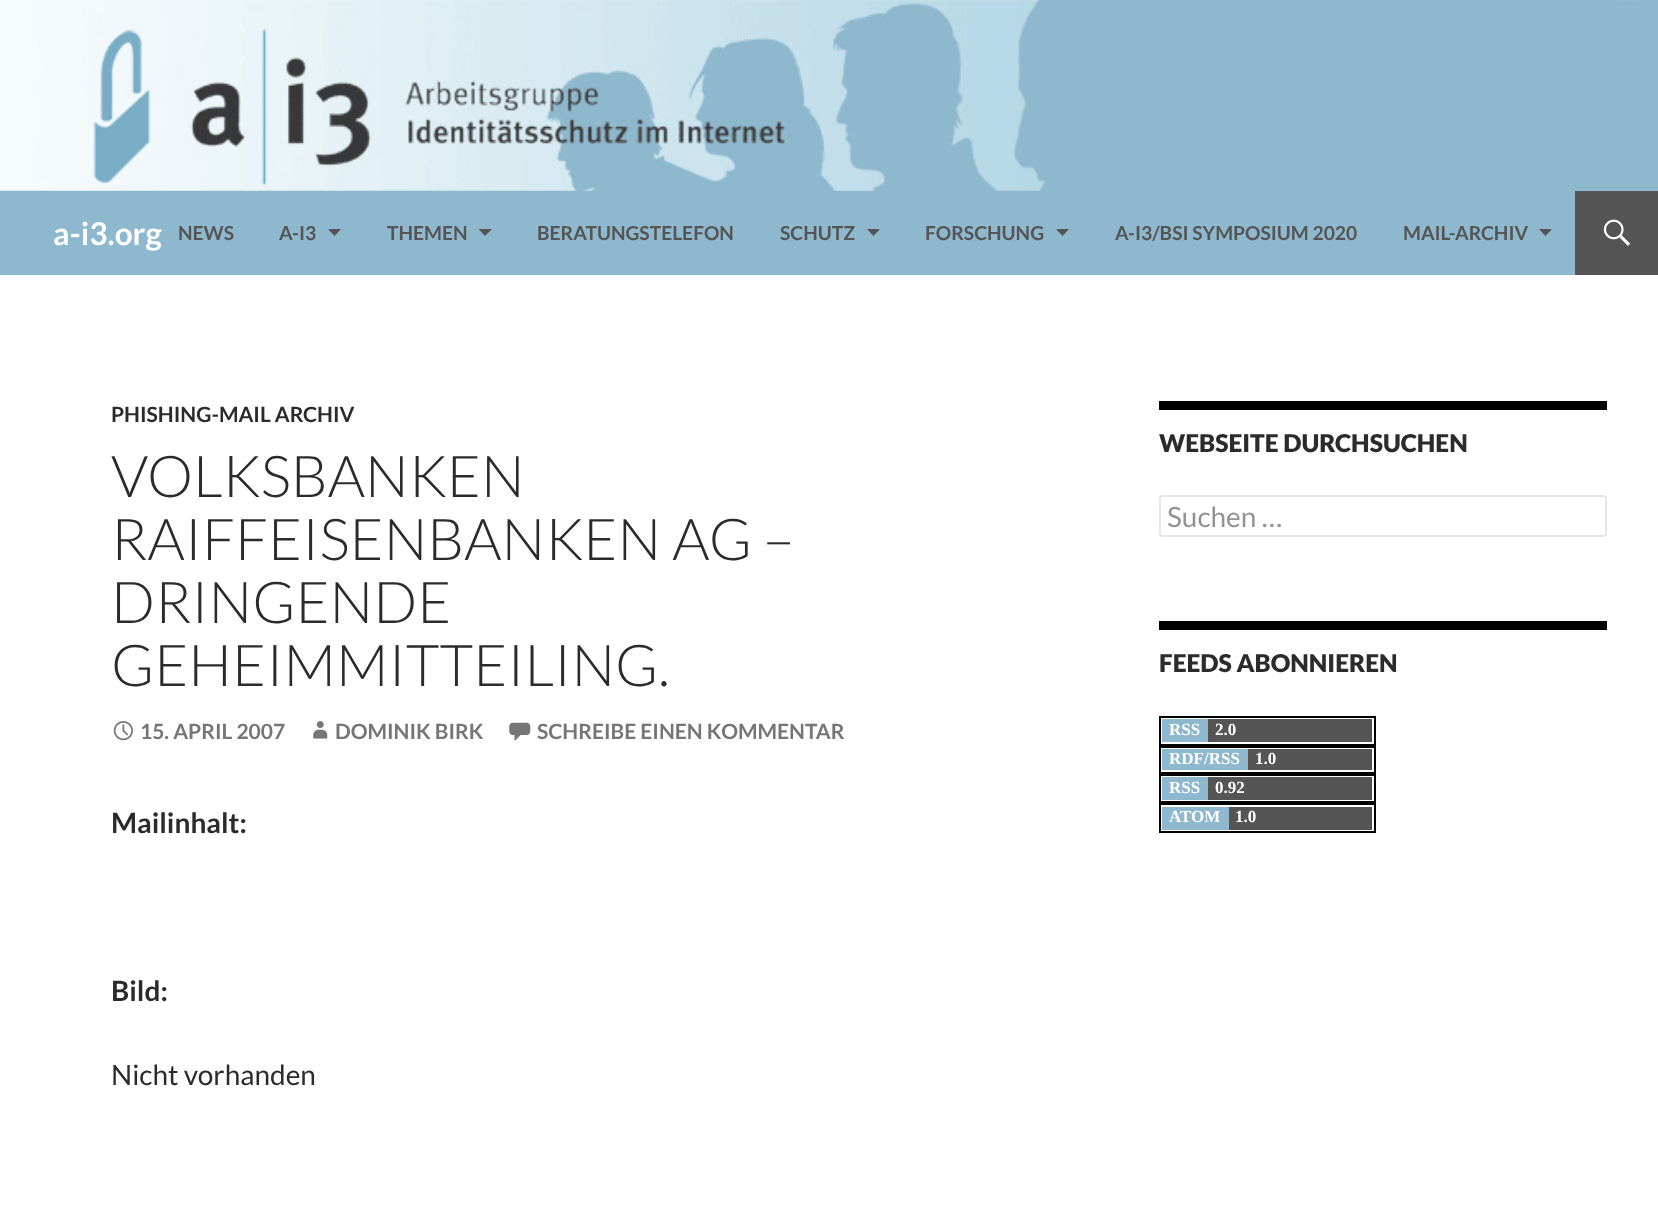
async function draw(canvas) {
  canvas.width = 1658;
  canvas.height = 1218;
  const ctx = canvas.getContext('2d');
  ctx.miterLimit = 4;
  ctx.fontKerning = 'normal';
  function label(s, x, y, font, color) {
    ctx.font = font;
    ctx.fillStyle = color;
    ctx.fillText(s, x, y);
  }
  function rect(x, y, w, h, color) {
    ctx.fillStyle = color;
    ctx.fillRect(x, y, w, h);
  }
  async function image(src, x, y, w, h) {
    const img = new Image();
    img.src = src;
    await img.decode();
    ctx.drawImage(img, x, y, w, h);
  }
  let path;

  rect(0, 0, 1658, 1218, '#fff');
  rect(0, 0, 1658, 191, '#8eb8ce');
  await image('assets/img1.png', 0, 0, 1639, 191);
  rect(0, 191, 1575, 84, '#8eb8ce');
  label('a-i3.org', 53, 245, 'bold 31.5px Lato', '#fff');
  label('NEWS', 178, 240, 'bold 19.25px Lato', '#555');
  label('A-I3', 279, 240, 'bold 19.25px Lato', '#555');
  path = new Path2D('M328 229L334.5 236L341 229Z');
  ctx.fill(path);
  label('THEMEN', 387, 240, 'bold 19.25px Lato', '#555');
  path = new Path2D('M478.5 229L485 236L492 229Z');
  ctx.fill(path);
  label('BERATUNGSTELEFON', 537, 240, 'bold 19.25px Lato', '#555');
  label('SCHUTZ', 780, 240, 'bold 19.25px Lato', '#555');
  path = new Path2D('M867 229L873.5 236L880 229Z');
  ctx.fill(path);
  label('FORSCHUNG', 925, 240, 'bold 19.25px Lato', '#555');
  path = new Path2D('M1056 229L1062.5 236L1069 229Z');
  ctx.fill(path);
  label('A-I3/BSI SYMPOSIUM 2020', 1115, 240, 'bold 19.25px Lato', '#555');
  label('MAIL-ARCHIV', 1403, 240, 'bold 19.25px Lato', '#555');
  path = new Path2D('M1539 229L1545.5 236L1552 229Z');
  ctx.fill(path);
  rect(1575, 191, 83, 84, '#555');
  await image('assets/img2.png', 1603, 219, 27, 27);
  label('PHISHING-MAIL ARCHIV', 111, 422, 'bold 21px Lato', '#2b2b2b');
  label('VOLKSBANKEN', 111, 497, '300 57.75px Lato', '#2b2b2b');
  label('RAIFFEISENBANKEN AG –', 111, 560, '300 57.75px Lato', '#2b2b2b');
  label('DRINGENDE', 111, 623, '300 57.75px Lato', '#2b2b2b');
  label('GEHEIMMITTEILING.', 111, 686, '300 57.75px Lato', '#2b2b2b');
  await image('assets/img3.png', 113, 721, 20, 20);
  label('15. APRIL 2007', 140, 739, 'bold 21px Lato', '#767676');
  await image('assets/img4.png', 313, 721, 15, 18);
  label('DOMINIK BIRK', 335, 739, 'bold 21px Lato', '#767676');
  await image('assets/img5.png', 509, 722, 22, 19);
  label('SCHREIBE EINEN KOMMENTAR', 537, 739, 'bold 21px Lato', '#767676');
  label('Mailinhalt:', 111, 833, 'bold 28px Lato', '#2b2b2b');
  label('Bild:', 111, 1001, 'bold 28px Lato', '#2b2b2b');
  label('Nicht vorhanden', 111, 1085, '28px Lato', '#2b2b2b');
  rect(1159, 401, 448, 9, '#000');
  label('WEBSEITE DURCHSUCHEN', 1159, 452, '900 24.5px Lato', '#2b2b2b');
  ctx.beginPath();
  ctx.roundRect(1160, 496, 446, 40, 3);
  ctx.strokeStyle = '#e6e6e6';
  ctx.lineWidth = 2;
  ctx.stroke();
  label('Suchen …', 1167, 527, '28px Lato', '#939393');
  rect(1159, 621, 448, 9, '#000');
  label('FEEDS ABONNIEREN', 1159, 672, '900 24.5px Lato', '#2b2b2b');
  ctx.strokeStyle = '#000';
  ctx.strokeRect(1160, 717, 215, 28);
  rect(1162, 719, 46, 23, '#8eb8ce');
  label('RSS', 1169, 735, 'bold 17px Liberation Serif', '#fff');
  rect(1208, 719, 164, 23, '#555');
  label('2.0', 1215, 735, 'bold 17px Liberation Serif', '#fff');
  ctx.strokeRect(1160, 747, 215, 26);
  rect(1162, 749, 86, 21, '#8eb8ce');
  label('RDF/RSS', 1169, 764, 'bold 17px Liberation Serif', '#fff');
  rect(1248, 749, 124, 21, '#555');
  label('1.0', 1255, 764, 'bold 17px Liberation Serif', '#fff');
  ctx.strokeRect(1160, 775, 215, 27);
  rect(1162, 777, 46, 23, '#8eb8ce');
  label('RSS', 1169, 793, 'bold 17px Liberation Serif', '#fff');
  rect(1208, 777, 164, 23, '#555');
  label('0.92', 1215, 793, 'bold 17px Liberation Serif', '#fff');
  ctx.strokeRect(1160, 804, 215, 28);
  rect(1162, 807, 67, 23, '#8eb8ce');
  label('ATOM', 1169, 822, 'bold 17px Liberation Serif', '#fff');
  rect(1229, 807, 143, 23, '#555');
  label('1.0', 1235, 822, 'bold 17px Liberation Serif', '#fff');
}

draw(document.querySelector('canvas'));
